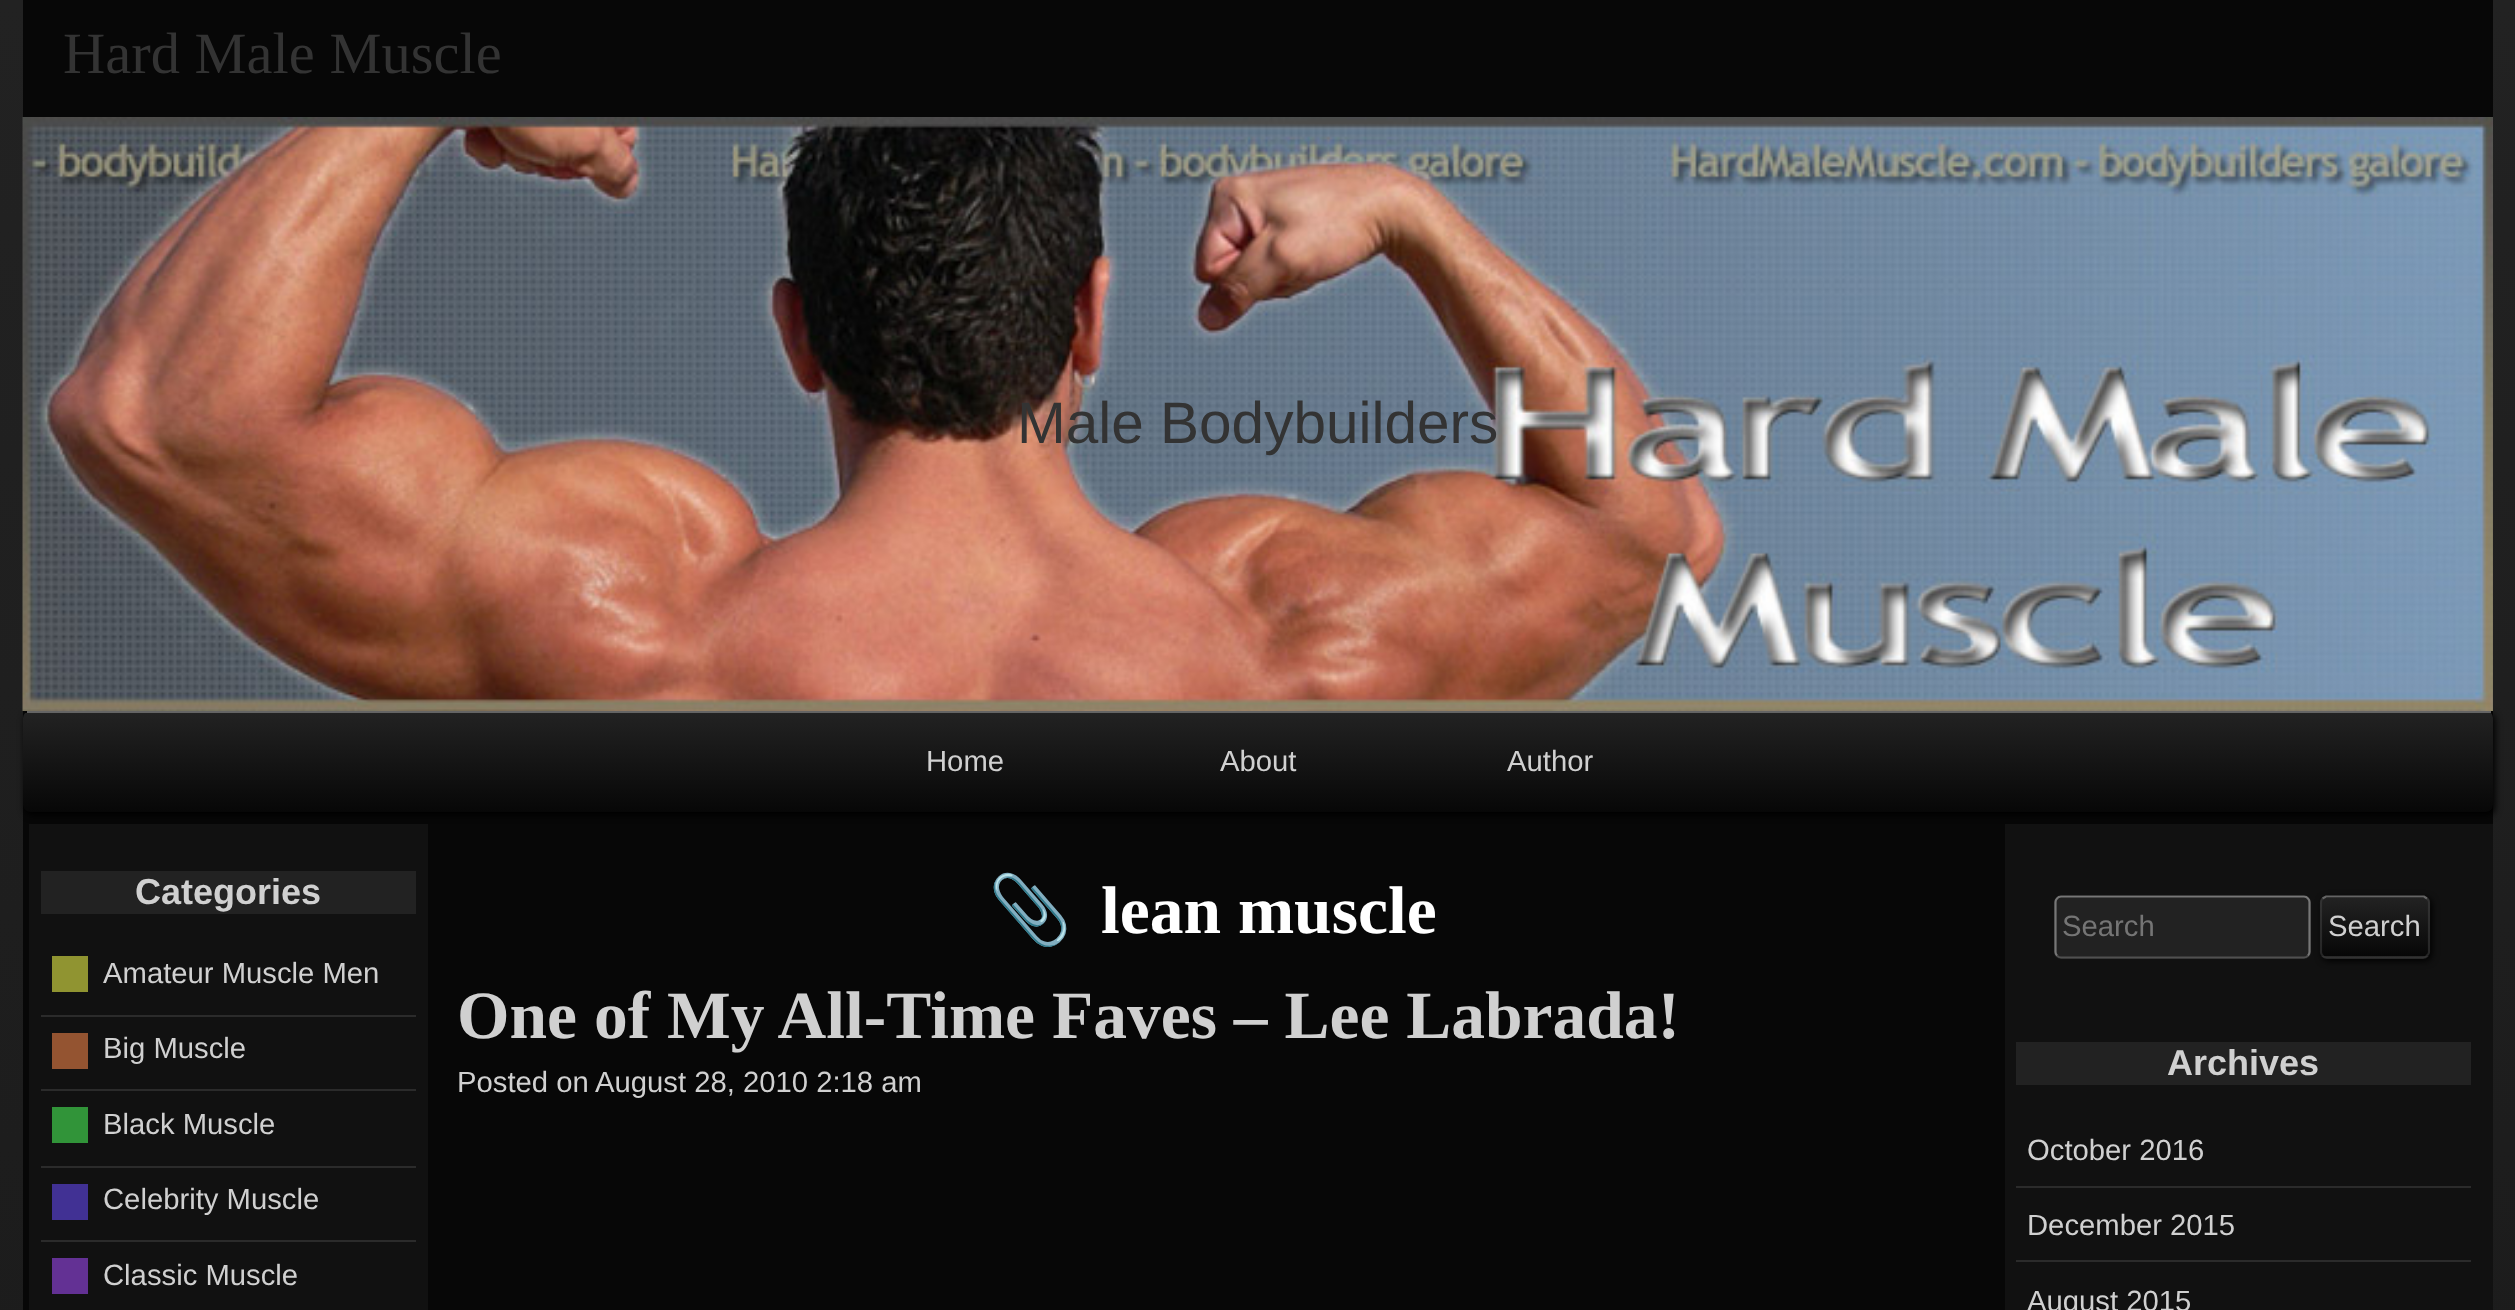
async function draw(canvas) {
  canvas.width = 2515;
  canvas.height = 1310;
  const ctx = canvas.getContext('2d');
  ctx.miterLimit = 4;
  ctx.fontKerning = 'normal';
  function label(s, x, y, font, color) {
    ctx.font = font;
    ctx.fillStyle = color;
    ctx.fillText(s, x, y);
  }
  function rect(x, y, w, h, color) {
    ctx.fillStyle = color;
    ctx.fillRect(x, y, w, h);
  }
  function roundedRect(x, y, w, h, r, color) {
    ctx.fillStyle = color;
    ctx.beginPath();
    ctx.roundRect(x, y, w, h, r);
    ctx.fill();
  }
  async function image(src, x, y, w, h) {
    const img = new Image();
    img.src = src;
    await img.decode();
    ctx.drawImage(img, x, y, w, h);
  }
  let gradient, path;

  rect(0, 0, 2515, 1310, '#fff');
  gradient = ctx.createLinearGradient(0, 0, 0, 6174);
  gradient.addColorStop(0, '#222');
  gradient.addColorStop(1, '#070707');
  ctx.fillStyle = gradient;
  ctx.fillRect(0, 0, 2515, 1310);
  rect(23, 0, 2470, 1310, '#070707');
  label('Hard Male Muscle', 63, 73, '58.5px Liberation Serif', '#333');
  ctx.fillStyle = '#000';
  ctx.filter = 'blur(3.5px)';
  ctx.beginPath();
  ctx.roundRect(25, 713, 2470, 102, 7);
  ctx.fill();
  ctx.filter = 'none';
  await image('assets/img1.png', 22, 117, 2471, 594);
  label('Male Bodybuilders', 1017, 443, '58.5px Liberation Sans', '#333');
  ctx.save();
  ctx.beginPath();
  ctx.roundRect(23, 711, 2470, 101, 7);
  ctx.clip();
  gradient = ctx.createLinearGradient(23, 713, 23, 812);
  gradient.addColorStop(0, '#222');
  gradient.addColorStop(1, '#070707');
  ctx.fillStyle = gradient;
  ctx.beginPath();
  ctx.roundRect(23, 713, 2470, 99, [0, 0, 7, 7]);
  ctx.fill();
  ctx.restore();
  rect(27, 711, 2464, 2, '#646464');
  label('Home', 926, 771, '29.25px Liberation Sans', '#d0d0d0');
  label('About', 1220, 771, '29.25px Liberation Sans', '#d0d0d0');
  label('Author', 1507, 771, '29.25px Liberation Sans', '#d0d0d0');
  rect(29, 824, 399, 486, '#111');
  rect(41, 871, 375, 43, '#222');
  label('Categories', 135, 904, 'bold 36px Liberation Sans', '#d0d0d0');
  rect(41, 1015, 375, 2, '#2b2b2b');
  rect(52, 956, 36, 36, '#909431');
  label('Amateur Muscle Men', 103, 983, '29.25px Liberation Sans', '#d0d0d0');
  rect(41, 1089, 375, 2, '#2b2b2b');
  rect(52, 1033, 36, 36, '#945431');
  label('Big Muscle', 103, 1058, '29.25px Liberation Sans', '#d0d0d0');
  rect(41, 1166, 375, 2, '#2b2b2b');
  rect(52, 1107, 36, 36, '#319439');
  label('Black Muscle', 103, 1134, '29.25px Liberation Sans', '#d0d0d0');
  rect(41, 1240, 375, 2, '#2b2b2b');
  rect(52, 1184, 36, 36, '#413194');
  label('Celebrity Muscle', 103, 1209, '29.25px Liberation Sans', '#d0d0d0');
  rect(52, 1258, 36, 36, '#633194');
  label('Classic Muscle', 103, 1285, '29.25px Liberation Sans', '#d0d0d0');
  label('📎', 988, 933, 'bold 67.5px Noto Color Emoji', '#fff');
  label('lean muscle', 1101, 933, 'bold 67.5px Liberation Serif', '#fff');
  label('One of My All-Time Faves – Lee Labrada!', 457, 1038, 'bold 67.5px Liberation Serif', '#d0d0d0');
  label('Posted on', 457, 1092, '29.25px Liberation Sans', '#d0d0d0');
  label('August 28, 2010 2:18 am', 595, 1092, '29.25px Liberation Sans', '#d0d0d0');
  rect(2005, 824, 488, 486, '#111');
  roundedRect(2054, 896, 257, 63, 7, '#222');
  path = new Path2D('M2308 955.5C2307 957 2305.5 957.5 2304 957.5H2061C2059.5 957.5 2058 957 2057 955.5');
  ctx.strokeStyle = '#505050';
  ctx.lineWidth = 2.2;
  ctx.stroke(path);
  path = new Path2D('M2057 955.5C2056 954.5 2055.5 953 2055.5 952V902C2055.5 901 2056 899.5 2057 898.5C2058 897 2059.5 896.5 2061 896.5H2304C2305.5 896.5 2307 897 2308 898.5C2309 899.5 2309.5 901 2309.5 902V952C2309.5 953 2309 954.5 2308 955.5');
  ctx.strokeStyle = '#cbcbcb80';
  ctx.stroke(path);
  label('Search', 2062, 936, '29.25px Liberation Sans', '#757575');
  ctx.fillStyle = '#000';
  ctx.filter = 'blur(3.5px)';
  ctx.beginPath();
  ctx.roundRect(2322, 898, 110, 63, 7);
  ctx.fill();
  ctx.filter = 'none';
  ctx.save();
  ctx.beginPath();
  ctx.roundRect(2320, 896, 110, 63, 7);
  ctx.clip();
  gradient = ctx.createLinearGradient(2322, 839, 2322, 898);
  gradient.addColorStop(0, '#222');
  gradient.addColorStop(1, '#070707');
  ctx.fillStyle = gradient;
  ctx.fillRect(2320, 896, 110, 2);
  gradient = ctx.createLinearGradient(2322, 898, 2322, 956);
  gradient.addColorStop(0, '#222');
  gradient.addColorStop(1, '#070707');
  ctx.fillStyle = gradient;
  ctx.fillRect(2320, 898, 110, 58);
  gradient = ctx.createLinearGradient(2322, 956, 2322, 1015);
  gradient.addColorStop(0, '#222');
  gradient.addColorStop(1, '#070707');
  ctx.fillStyle = gradient;
  ctx.fillRect(2320, 956, 110, 3);
  ctx.restore();
  path = new Path2D('M2322.5 898.5L2326 896.5H2424L2427 898.5');
  ctx.strokeStyle = '#646464';
  ctx.stroke(path);
  path = new Path2D('M2427 898.5C2428.5 899.5 2429 901 2429 902V952C2429 953 2428.5 954.5 2427 955.5C2426 957 2424.5 957.5 2423 957.5H2326.5C2325 957.5 2323.5 957 2322.5 955.5C2321.5 954.5 2321 953 2321 952V902C2321 901 2321.5 899.5 2322.5 898.5');
  ctx.strokeStyle = '#44444480';
  ctx.stroke(path);
  label('Search', 2328, 936, '29.25px Liberation Sans', '#d0d0d0');
  rect(2016, 1042, 455, 43, '#222');
  label('Archives', 2167, 1075, 'bold 36px Liberation Sans', '#d0d0d0');
  rect(2016, 1186, 455, 2, '#2b2b2b');
  label('October 2016', 2027, 1160, '29.25px Liberation Sans', '#d0d0d0');
  rect(2016, 1260, 455, 2, '#2b2b2b');
  label('December 2015', 2027, 1235, '29.25px Liberation Sans', '#d0d0d0');
  label('August 2015', 2027, 1311, '29.25px Liberation Sans', '#d0d0d0');
}

draw(document.querySelector('canvas'));
